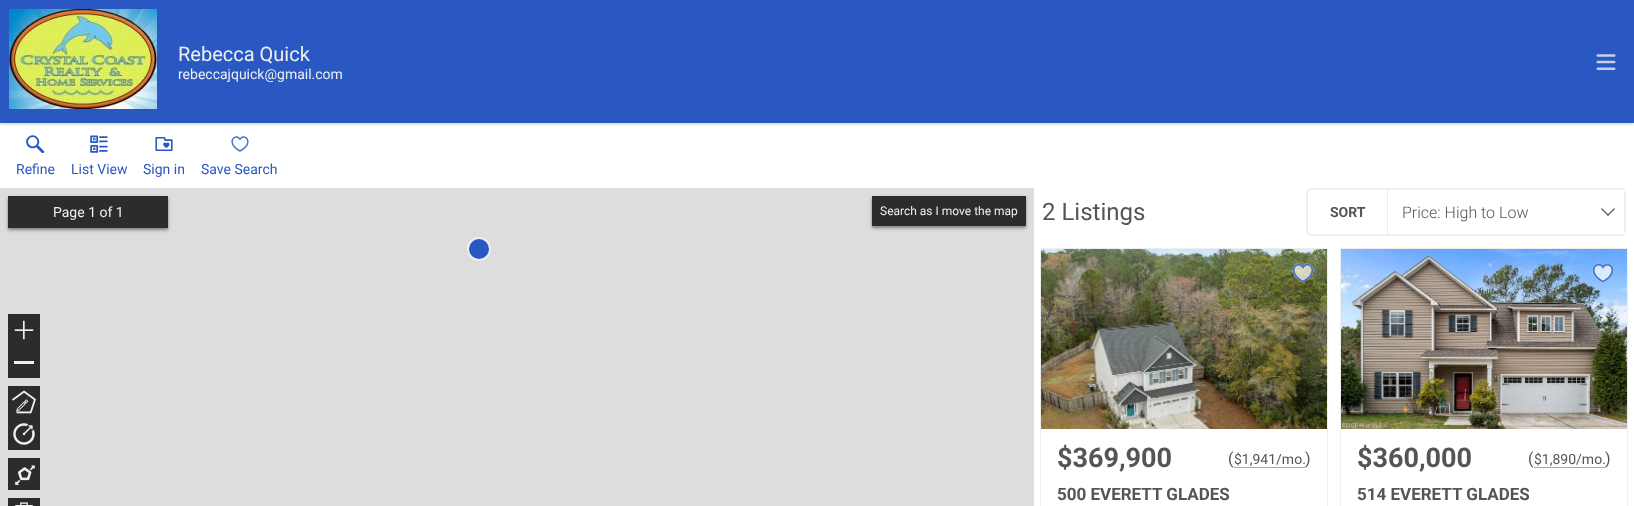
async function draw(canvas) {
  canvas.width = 1634;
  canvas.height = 506;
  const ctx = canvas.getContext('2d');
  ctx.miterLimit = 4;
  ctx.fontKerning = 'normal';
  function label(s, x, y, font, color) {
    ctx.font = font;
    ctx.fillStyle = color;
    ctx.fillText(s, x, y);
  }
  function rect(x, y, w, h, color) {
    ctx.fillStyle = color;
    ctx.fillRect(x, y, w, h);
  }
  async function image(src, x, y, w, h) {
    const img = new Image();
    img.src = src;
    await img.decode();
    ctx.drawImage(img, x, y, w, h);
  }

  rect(0, 0, 1634, 506, '#fff');
  ctx.fillStyle = '#00000033';
  ctx.filter = 'blur(1.5px)';
  ctx.beginPath();
  ctx.rect(0, 1, 1634, 123);
  ctx.fill();
  ctx.filter = 'none';
  rect(0, 0, 1634, 123, '#2958c2');
  await image('assets/img1.png', 9, 9, 148, 100);
  label('Rebecca Quick', 178, 61, '20px Roboto', '#efefef');
  label('rebeccajquick@gmail.com', 178, 79, '14px Roboto', '#efefef');
  await image('assets/img2.png', 1596, 54, 20, 16);
  await image('assets/img3.png', 26, 135, 19, 18);
  label('Refine', 16, 174, '14px Roboto', '#2958c2');
  await image('assets/img4.png', 90, 135, 18, 18);
  label('List View', 71, 174, '14px Roboto', '#2958c2');
  await image('assets/img5.png', 155, 137, 18, 14);
  label('Sign in', 143, 174, '14px Roboto', '#2958c2');
  await image('assets/img6.png', 231, 136, 18, 16);
  label('Save Search', 201, 174, '14px Roboto', '#2958c2');
  rect(0, 188, 1034, 318, '#ddd');
  ctx.fillStyle = '#00000040';
  ctx.filter = 'blur(1px)';
  ctx.beginPath();
  ctx.rect(8, 198, 160, 32);
  ctx.fill();
  ctx.filter = 'none';
  ctx.fillStyle = '#00000033';
  ctx.filter = 'blur(2px)';
  ctx.beginPath();
  ctx.rect(8, 198, 160, 32);
  ctx.fill();
  ctx.filter = 'none';
  rect(8, 196, 160, 32, '#2c2c2c');
  label('Page 1 of 1', 53, 217, '14px Roboto', '#efefef');
  ctx.fillStyle = '#00000040';
  ctx.filter = 'blur(1px)';
  ctx.beginPath();
  ctx.rect(872, 198, 154, 30);
  ctx.fill();
  ctx.filter = 'none';
  ctx.fillStyle = '#00000033';
  ctx.filter = 'blur(2px)';
  ctx.beginPath();
  ctx.rect(872, 198, 154, 30);
  ctx.fill();
  ctx.filter = 'none';
  rect(872, 196, 154, 30, '#2c2c2c');
  label('Search as I move the map', 880, 215, '12px Roboto', '#efefef');
  rect(8, 314, 32, 64, '#2c2c2c');
  await image('assets/img7.png', 14, 320, 20, 20);
  rect(14, 361, 20, 3, '#efefef');
  rect(8, 386, 32, 64, '#2c2c2c');
  await image('assets/img8.png', 12, 390, 24, 24);
  await image('assets/img9.png', 13, 423, 22, 22);
  rect(8, 458, 32, 32, '#2c2c2c');
  await image('assets/img10.png', 15, 465, 20, 20);
  rect(8, 498, 32, 8, '#2c2c2c');
  await image('assets/img11.png', 14, 502, 20, 4);
  ctx.fillStyle = '#2958c2';
  ctx.beginPath();
  ctx.arc(479, 249, 11, 0, 2 * Math.PI);
  ctx.fill();
  ctx.strokeStyle = '#efefef';
  ctx.lineWidth = 2;
  ctx.stroke();
  label('2 Listings', 1042, 220, '24px Roboto', '#555');
  ctx.beginPath();
  ctx.roundRect(1307, 189, 318, 46, 5);
  ctx.stroke();
  label('SORT', 1330, 217, 'bold 14px Roboto', '#555');
  rect(1621, 190, 3, 44, '#fff');
  rect(1387, 190, 1, 44, '#ececec');
  label('Price: High to Low', 1402, 218, '300 16px Roboto', '#555');
  await image('assets/img12.png', 1601, 208, 14, 8);
  ctx.beginPath();
  ctx.roundRect(1040.5, 248.5, 287, 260, 1.5);
  ctx.strokeStyle = '#eee';
  ctx.lineWidth = 1;
  ctx.stroke();
  await image('assets/img13.png', 1041, 249, 286, 180);
  await image('assets/img14.png', 1292, 263, 22, 20);
  label('$369,900', 1057, 467, 'bold 27px Roboto', '#555');
  label('(', 1228, 464, '16px Roboto', '#555');
  rect(1234, 467, 71, 1, '#aaa');
  label('$1,941/mo.', 1234, 464, '14px Roboto', '#555');
  label(')', 1305, 464, '16px Roboto', '#555');
  label('500 EVERETT GLADES', 1057, 500, 'bold 17px Roboto', '#555');
  ctx.beginPath();
  ctx.roundRect(1340.5, 248.5, 287, 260, 1.5);
  ctx.stroke();
  await image('assets/img15.png', 1341, 249, 286, 180);
  await image('assets/img16.png', 1592, 263, 22, 20);
  label('$360,000', 1357, 467, 'bold 27px Roboto', '#555');
  label('(', 1528, 464, '16px Roboto', '#555');
  rect(1534, 467, 71, 1, '#aaa');
  label('$1,890/mo.', 1534, 464, '14px Roboto', '#555');
  label(')', 1605, 464, '16px Roboto', '#555');
  label('514 EVERETT GLADES', 1357, 500, 'bold 17px Roboto', '#555');
}

draw(document.querySelector('canvas'));
